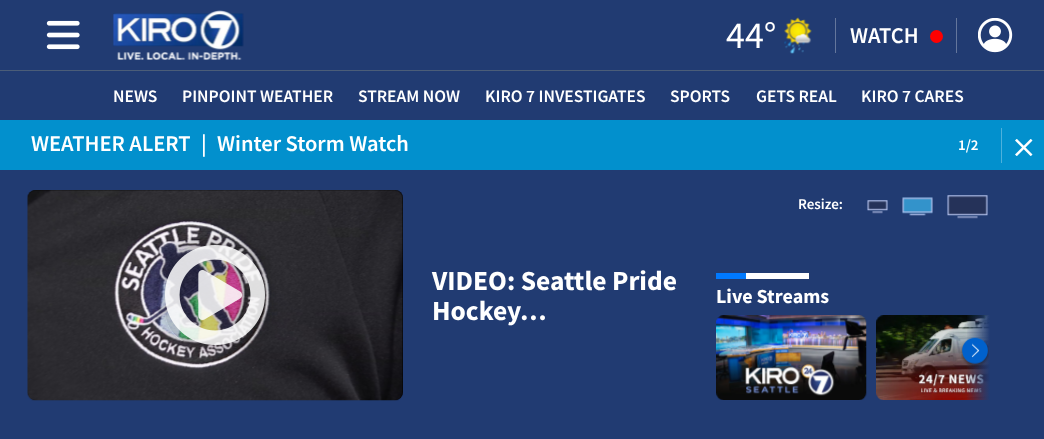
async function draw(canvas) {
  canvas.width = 1044;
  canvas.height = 439;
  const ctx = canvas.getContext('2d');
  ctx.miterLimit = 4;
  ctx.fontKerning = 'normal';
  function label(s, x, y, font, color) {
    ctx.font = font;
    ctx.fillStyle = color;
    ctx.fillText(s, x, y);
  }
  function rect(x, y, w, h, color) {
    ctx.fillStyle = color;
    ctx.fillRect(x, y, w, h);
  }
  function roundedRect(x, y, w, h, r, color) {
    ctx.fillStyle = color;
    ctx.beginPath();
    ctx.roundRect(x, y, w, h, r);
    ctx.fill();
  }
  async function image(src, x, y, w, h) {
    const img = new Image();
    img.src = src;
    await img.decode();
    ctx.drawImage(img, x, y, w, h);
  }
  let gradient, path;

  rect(0, 0, 1044, 439, '#213b72');
  await image('assets/img1.png', 46, 20, 34, 30);
  await image('assets/img2.png', 113, 10, 131, 50);
  label('44°', 726, 48, '38px Source Sans Pro', '#fff');
  await image('assets/img3.png', 784, 17, 28, 37);
  rect(835, 18, 1, 35, '#64769c');
  label('WATCH', 850, 43, '600 22.5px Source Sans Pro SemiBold', '#fff');
  ctx.fillStyle = '#f00';
  ctx.beginPath();
  ctx.arc(936.5, 36.5, 6.5, 0, 2 * Math.PI);
  ctx.fill();
  rect(956, 18, 1, 35, '#64769c');
  await image('assets/img4.png', 978, 18, 35, 35);
  rect(0, 70, 1044, 1, '#4b5d78');
  label('NEWS', 113, 102, '600 17.5px Source Sans Pro SemiBold', '#fff');
  label('PINPOINT WEATHER', 182, 102, '600 17.5px Source Sans Pro SemiBold', '#fff');
  label('STREAM NOW', 358, 102, '600 17.5px Source Sans Pro SemiBold', '#fff');
  label('KIRO 7 INVESTIGATES', 485, 102, '600 17.5px Source Sans Pro SemiBold', '#fff');
  label('SPORTS', 670, 102, '600 17.5px Source Sans Pro SemiBold', '#fff');
  label('GETS REAL', 756, 102, '600 17.5px Source Sans Pro SemiBold', '#fff');
  label('KIRO 7 CARES', 861, 102, '600 17.5px Source Sans Pro SemiBold', '#fff');
  rect(0, 120, 1044, 50, '#0290cd');
  label('WEATHER ALERT', 31, 151, '600 22.5px Source Sans Pro SemiBold', '#fff');
  label('|', 201, 151, '600 22.5px Source Sans Pro SemiBold', '#fff');
  label('Winter Storm Watch', 217, 151, '600 22.5px Source Sans Pro SemiBold', '#fff');
  label('1/2', 958, 150, '600 15px Source Sans Pro SemiBold', '#fff');
  rect(1001, 128, 1, 35, '#4eb1dc');
  await image('assets/img5.png', 1015, 139, 18, 17);
  roundedRect(28, 190, 375, 210, 8, '#000');
  await image('assets/img6.png', 27, 190, 376, 211);
  ctx.save();
  path = new Path2D('M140 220H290V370H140ZM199 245H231C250 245 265 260 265 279V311C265 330 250 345 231 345H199C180 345 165 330 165 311V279C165 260 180 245 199 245Z');
  ctx.clip(path, 'evenodd');
  ctx.fillStyle = '#00000036';
  ctx.filter = 'blur(6px)';
  ctx.beginPath();
  ctx.roundRect(159, 239, 112, 112, 40);
  ctx.fill();
  ctx.filter = 'none';
  ctx.restore();
  roundedRect(165, 245, 100, 100, 34, '#00000036');
  await image('assets/img7.png', 165, 245, 100, 100);
  label('Resize:', 798, 209, '600 15px Source Sans Pro SemiBold', '#fff');
  await image('assets/img8.png', 867, 200, 21, 14);
  await image('assets/img9.png', 902, 197, 31, 19);
  await image('assets/img10.png', 947, 195, 41, 24);
  label('VIDEO: Seattle Pride', 432, 290, 'bold 27.5px Source Sans Pro', '#fff');
  label('Hockey…', 432, 320, 'bold 27.5px Source Sans Pro', '#fff');
  rect(746, 273, 63, 6, '#fff');
  rect(716, 273, 30, 6, '#0079ff');
  label('Live Streams', 716, 303, 'bold 20px Source Sans Pro', '#fff');
  await image('assets/img11.png', 716, 315, 151, 85);
  await image('assets/img12.png', 876, 315, 114, 85);
  gradient = ctx.createLinearGradient(966, 350, 996, 350);
  gradient.addColorStop(0, '#213b7200');
  gradient.addColorStop(0.8, '#213b72');
  ctx.fillStyle = gradient;
  ctx.fillRect(967, 315, 23, 85);
  await image('assets/img13.png', 961, 337, 28, 30);
}

draw(document.querySelector('canvas'));
